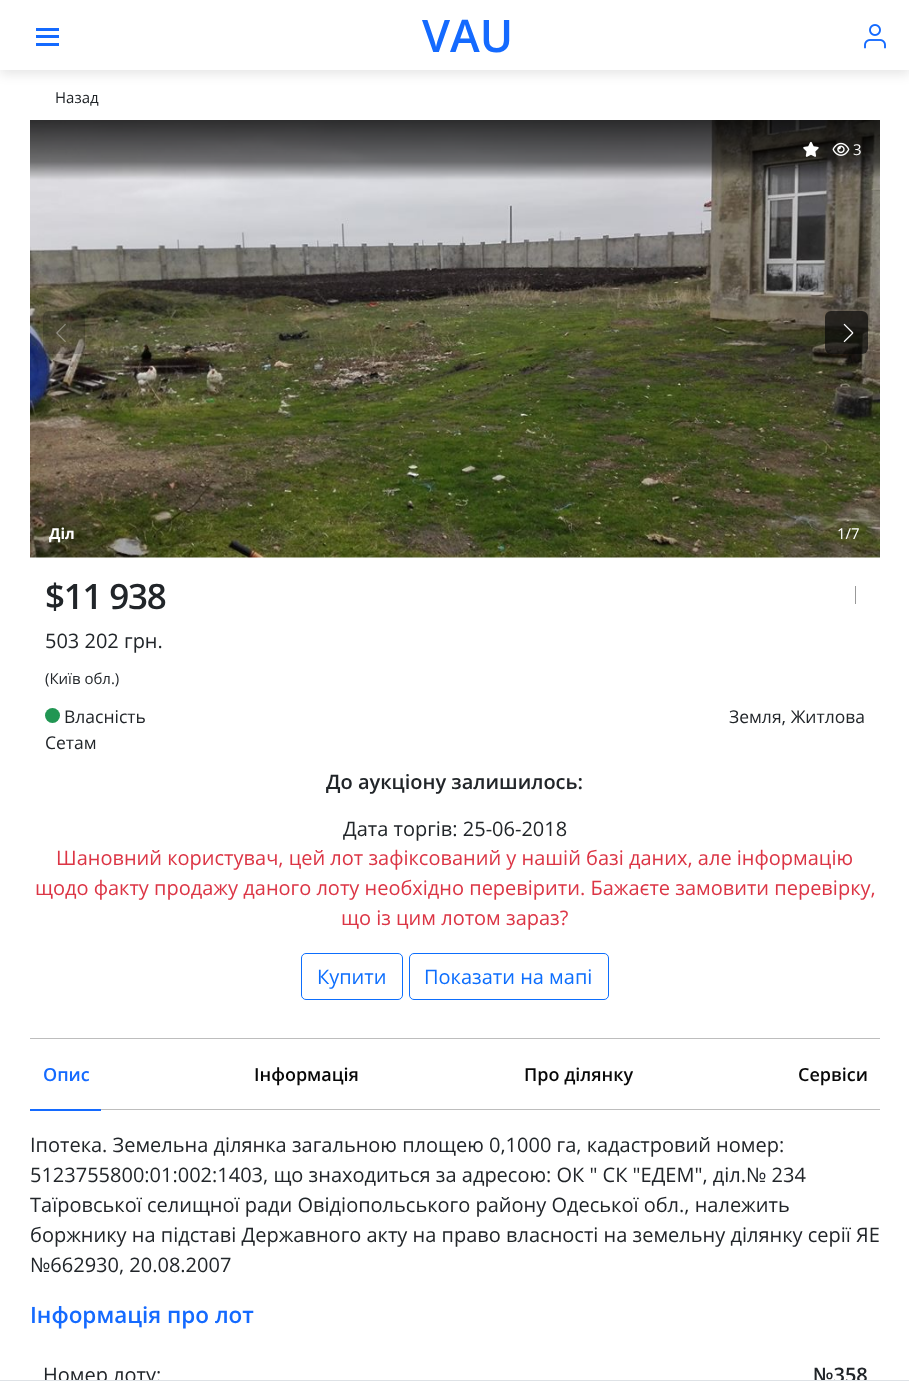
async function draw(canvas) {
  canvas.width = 909;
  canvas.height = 1384;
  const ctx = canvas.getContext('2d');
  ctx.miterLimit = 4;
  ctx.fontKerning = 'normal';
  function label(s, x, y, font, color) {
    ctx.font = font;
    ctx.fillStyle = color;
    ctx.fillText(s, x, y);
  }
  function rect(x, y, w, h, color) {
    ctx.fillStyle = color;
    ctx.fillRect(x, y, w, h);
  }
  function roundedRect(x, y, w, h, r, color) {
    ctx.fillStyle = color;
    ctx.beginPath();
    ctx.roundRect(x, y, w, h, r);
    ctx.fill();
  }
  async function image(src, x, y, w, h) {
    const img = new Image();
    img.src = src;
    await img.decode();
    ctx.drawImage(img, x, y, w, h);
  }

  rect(0, 0, 909, 1384, '#fff');
  ctx.fillStyle = '#0000001a';
  ctx.filter = 'blur(6px)';
  ctx.beginPath();
  ctx.rect(0, 4, 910, 70);
  ctx.fill();
  ctx.filter = 'none';
  rect(0, 0, 909, 70, '#fff');
  rect(36, 28, 23, 3, '#146aff');
  rect(36, 35, 23, 3, '#146aff');
  rect(36, 43, 23, 3, '#146aff');
  label('VAU', 422, 52, '600 45px Open Sans', '#146aff');
  await image('assets/img1.png', 864, 24, 22, 25);
  label('Назад', 55, 103, '15px Open Sans', '#212529');
  await image('assets/img4.png', 30, 120, 850, 438);
  await image('assets/img2.png', 803, 141, 16, 16);
  await image('assets/img3.png', 832, 142, 18, 14);
  label('3', 853, 155, '15px Open Sans', '#fff');
  label('Діл', 49, 539, 'bold 15px Open Sans', '#fff');
  roundedRect(43, 311, 42, 43, 6, '#0808083d');
  await image('assets/img5.png', 56, 323, 10, 19);
  roundedRect(825, 311, 43, 43, 6, '#080808b3');
  await image('assets/img6.png', 843, 323, 11, 20);
  label('1/7', 837, 539, '15px Open Sans', '#fff');
  ctx.letterSpacing = '-1.25px';
  label('$11 938', 45, 609, '600 35px Open Sans', '#212529');
  rect(855, 586, 1, 18, '#999');
  ctx.letterSpacing = '0px';
  label('503 202 грн.', 45, 648, '20px Open Sans', '#212529');
  label('(Київ обл.)', 45, 684, '15px Open Sans', '#212529');
  ctx.fillStyle = '#219653';
  ctx.beginPath();
  ctx.arc(52.5, 715.5, 7.5, 0, 2 * Math.PI);
  ctx.fill();
  label('Власність', 64, 723, '17.5px Open Sans', '#212529');
  label('Сетам', 45, 749, '17.5px Open Sans', '#212529');
  label('Земля, Житлова', 729, 723, '17.5px Open Sans', '#212529');
  label('До аукціону залишилось:', 326, 789, '600 20px Open Sans', '#212529');
  label('Дата торгів: 25-06-2018', 343, 836, '20px Open Sans', '#212529');
  label('Шановний користувач, цей лот зафіксований у нашій базі даних, але інформацію', 56, 865, '20px Open Sans', '#dc3545');
  label('щодо факту продажу даного лоту необхідно перевірити. Бажаєте замовити перевірку,', 35, 895, '20px Open Sans', '#dc3545');
  label('що із цим лотом зараз?', 341, 925, '20px Open Sans', '#dc3545');
  ctx.beginPath();
  ctx.roundRect(301.5, 953.5, 101, 46, 4.5);
  ctx.strokeStyle = '#0d6efd';
  ctx.stroke();
  label('Купити', 317, 984, '20px Open Sans', '#0d6efd');
  ctx.beginPath();
  ctx.roundRect(409.5, 953.5, 199, 46, 4.5);
  ctx.stroke();
  label('Показати на мапі', 424, 984, '20px Open Sans', '#0d6efd');
  rect(30, 1038, 850, 1, '#bdbdbd');
  rect(30, 1109, 71, 2, '#146aff');
  label('Опис', 43, 1081, '600 18px Open Sans', '#146aff');
  label('Інформація', 254, 1081, '600 18px Open Sans', '#080808');
  label('Про ділянку', 524, 1081, '600 18px Open Sans', '#080808');
  label('Сервіси', 798, 1081, '600 18px Open Sans', '#080808');
  rect(101, 1109, 779, 1, '#bdbdbd');
  label('Іпотека. Земельна ділянка загальною площею 0,1000 га, кадастровий номер:', 30, 1152, '20px Open Sans', '#212529');
  label('5123755800:01:002:1403, що знаходиться за адресою: ОК " СК "ЕДЕМ", діл.№ 234', 30, 1182, '20px Open Sans', '#212529');
  label('Таїровської селищної ради Овідіопольського району Одеської обл., належить', 30, 1212, '20px Open Sans', '#212529');
  label('боржнику на підставі Державного акту на право власності на земельну ділянку серії ЯЕ', 30, 1242, '20px Open Sans', '#212529');
  label('№662930, 20.08.2007', 30, 1272, '20px Open Sans', '#212529');
  label('Інформація про лот', 30, 1323, '600 22.5px Open Sans', '#146aff');
  ctx.save();
  ctx.beginPath();
  ctx.rect(0, 120, 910, 1260);
  ctx.clip();
  label('Номер лоту:', 43, 1382, '20px Open Sans', '#212529');
  label('№358', 813, 1382, '600 20px Open Sans', '#212529');
  ctx.restore();
  rect(0, 1380, 909, 1, '#dee2e6');
}

draw(document.querySelector('canvas'));
